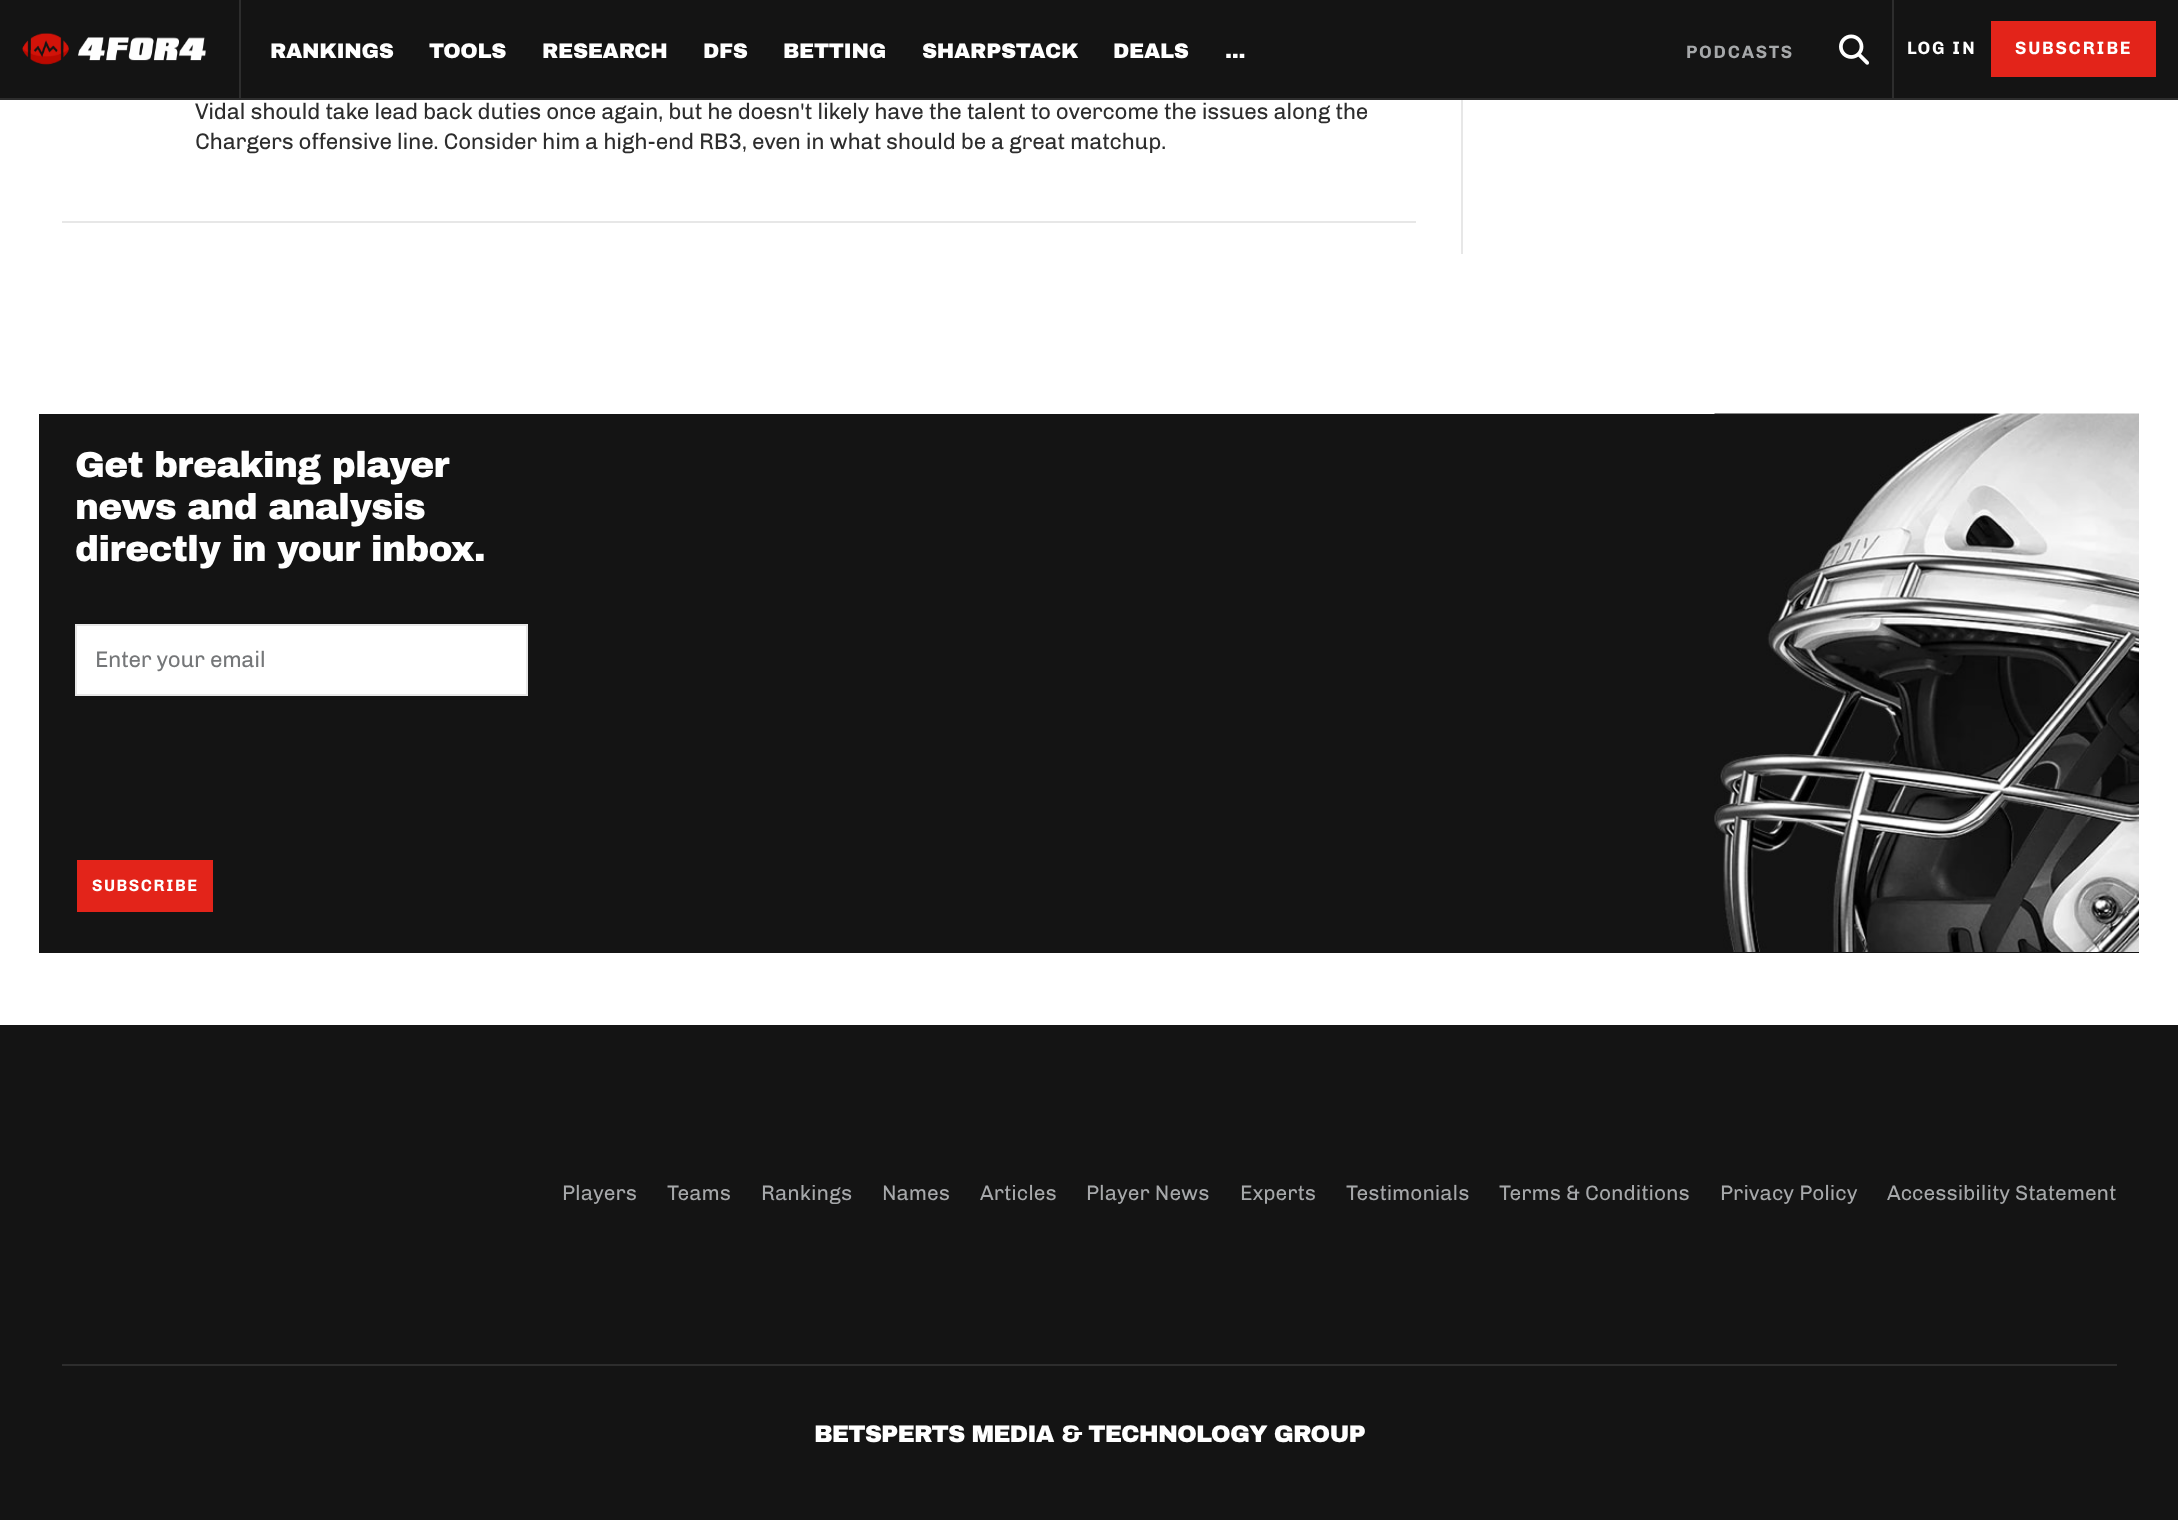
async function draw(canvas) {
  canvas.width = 2178;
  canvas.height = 1520;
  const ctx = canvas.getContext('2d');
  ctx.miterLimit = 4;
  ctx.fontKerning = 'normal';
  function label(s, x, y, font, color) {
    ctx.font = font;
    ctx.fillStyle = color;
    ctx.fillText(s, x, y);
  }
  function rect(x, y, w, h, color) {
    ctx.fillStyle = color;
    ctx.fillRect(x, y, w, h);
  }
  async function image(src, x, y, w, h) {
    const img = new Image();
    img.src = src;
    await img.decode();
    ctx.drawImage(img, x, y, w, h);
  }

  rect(0, 0, 2178, 1520, '#fff');
  rect(0, 0, 2178, 98, '#141414');
  rect(0, 98, 2178, 2, '#2d2d2d');
  await image('assets/img1.png', 22, 33, 184, 32);
  rect(239, 0, 2, 98, '#2d2d2d');
  ctx.letterSpacing = '-0.3px';
  label('RANKINGS', 270, 58, '900 21px archivo', '#fff');
  label('TOOLS', 429, 58, '900 21px archivo', '#fff');
  label('RESEARCH', 542, 58, '900 21px archivo', '#fff');
  label('DFS', 703, 58, '900 21px archivo', '#fff');
  label('BETTING', 783, 58, '900 21px archivo', '#fff');
  label('SHARPSTACK', 922, 58, '900 21px archivo', '#fff');
  label('DEALS', 1113, 58, '900 21px archivo', '#fff');
  label('...', 1225, 58, '900 21px archivo', '#fff');
  ctx.letterSpacing = '1.75px';
  label('PODCASTS', 1686, 58, 'bold 18px chivo', '#a6a8aa');
  await image('assets/img2.png', 1839, 34, 30, 31);
  rect(1892, 0, 2, 99, '#2d2d2d');
  label('LOG IN', 1907, 54, 'bold 18px chivo', '#fff');
  rect(1991, 21, 165, 56, '#e3241a');
  label('SUBSCRIBE', 2015, 54, 'bold 18px chivo', '#fff');
  ctx.letterSpacing = '-0.3px';
  label('Vidal should take lead back duties once again, but he doesn\'t likely have the talent to overcome the issues along the', 195, 119, '22.5px chivo', '#2d2d2d');
  label('Chargers offensive line. Consider him a high-end RB3, even in what should be a great matchup.', 195, 149, '22.5px chivo', '#2d2d2d');
  rect(62, 221, 1354, 2, '#e7e7e7');
  rect(1461, 100, 2, 154, '#e7e7e7');
  rect(39, 414, 2100, 539, '#141414');
  await image('assets/img3.png', 1714, 413, 425, 539);
  ctx.letterSpacing = '-0.75px';
  label('Get breaking player', 75, 477, '900 36px archivo', '#fff');
  label('news and analysis', 75, 519, '900 36px archivo', '#fff');
  label('directly in your inbox.', 75, 561, '900 36px archivo', '#fff');
  ctx.beginPath();
  ctx.rect(76, 625, 451, 70);
  ctx.fill();
  ctx.strokeStyle = '#e7e7e7';
  ctx.lineWidth = 2;
  ctx.stroke();
  ctx.letterSpacing = '-0.3px';
  label('Enter your email', 95, 667, '22.5px chivo', '#757779');
  rect(77, 860, 136, 52, '#e3241a');
  ctx.letterSpacing = '1.5px';
  label('SUBSCRIBE', 92, 891, 'bold 16.5px chivo', '#fff');
  rect(0, 1025, 2178, 495, '#141414');
  ctx.letterSpacing = '0px';
  label('Players', 562, 1200, '21px chivo', '#a6a8aa');
  label('Teams', 667, 1200, '21px chivo', '#a6a8aa');
  label('Rankings', 761, 1200, '21px chivo', '#a6a8aa');
  label('Names', 882, 1200, '21px chivo', '#a6a8aa');
  label('Articles', 980, 1200, '21px chivo', '#a6a8aa');
  label('Player News', 1086, 1200, '21px chivo', '#a6a8aa');
  label('Experts', 1240, 1200, '21px chivo', '#a6a8aa');
  label('Testimonials', 1346, 1200, '21px chivo', '#a6a8aa');
  label('Terms & Conditions', 1499, 1200, '21px chivo', '#a6a8aa');
  label('Privacy Policy', 1720, 1200, '21px chivo', '#a6a8aa');
  label('Accessibility Statement', 1887, 1200, '21px chivo', '#a6a8aa');
  rect(62, 1364, 2055, 2, '#2d2d2d');
  ctx.letterSpacing = '-0.9px';
  label('BETSPERTS MEDIA & TECHNOLOGY GROUP', 814, 1442, '900 24px archivo', '#fff');
}

draw(document.querySelector('canvas'));
